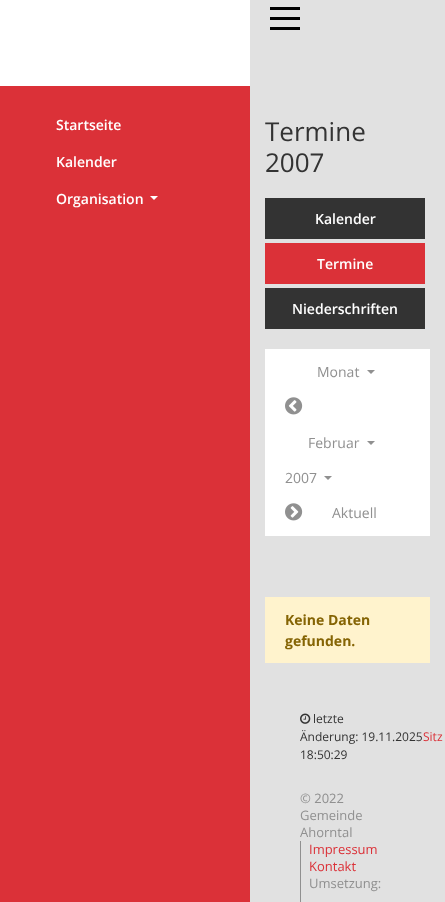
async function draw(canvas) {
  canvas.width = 445;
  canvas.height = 902;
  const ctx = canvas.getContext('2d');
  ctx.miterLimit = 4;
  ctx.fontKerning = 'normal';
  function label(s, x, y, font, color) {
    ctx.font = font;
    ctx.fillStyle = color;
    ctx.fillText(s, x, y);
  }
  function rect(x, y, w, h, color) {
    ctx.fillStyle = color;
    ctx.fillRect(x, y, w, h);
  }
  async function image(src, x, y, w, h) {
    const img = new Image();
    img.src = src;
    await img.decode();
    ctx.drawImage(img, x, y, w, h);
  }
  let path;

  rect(0, 0, 445, 902, '#e1e1e1');
  rect(0, 86, 250, 816, '#db3138');
  rect(0, 0, 250, 86, '#fff');
  label('Startseite', 56, 130, '600 14px Open Sans', '#fff');
  label('Kalender', 56, 167, '600 14px Open Sans', '#fff');
  label('Organisation', 56, 204, '600 14px Open Sans', '#fff');
  path = new Path2D('M150 196H158L154 200Z');
  ctx.fill(path);
  rect(270, 7, 30, 3, '#000');
  rect(270, 17, 30, 3, '#000');
  rect(270, 27, 30, 3, '#000');
  label('Termine', 265, 141, '26px Open Sans', '#333');
  label('2007', 265, 172, '26px Open Sans', '#333');
  rect(425, 328, 5, 1, '#dee2e6');
  rect(265, 198, 160, 41, '#333');
  label('Kalender', 315, 224, '600 14px Open Sans', '#fff');
  rect(265, 243, 160, 41, '#db3138');
  label('Termine', 317, 269, '600 14px Open Sans', '#fff');
  rect(265, 288, 160, 41, '#333');
  label('Niederschriften', 292, 314, '600 14px Open Sans', '#fff');
  rect(265, 349, 165, 187, '#fff');
  label('Monat', 317, 377, '14px Open Sans', '#909090');
  path = new Path2D('M367 370H375L371 374Z');
  ctx.fill(path);
  await image('assets/img1.png', 285, 397, 18, 18);
  label('Februar', 308, 448, '14px Open Sans', '#909090');
  path = new Path2D('M367 441H375L371 445Z');
  ctx.fill(path);
  label('2007', 285, 483, '14px Open Sans', '#909090');
  path = new Path2D('M324 476H332L328 480Z');
  ctx.fill(path);
  await image('assets/img2.png', 285, 503, 18, 18);
  label('Aktuell', 332, 518, '14px Open Sans', '#909090');
  rect(265, 597, 165, 66, '#fff3cd');
  label('Keine Daten', 285, 625, 'bold 14px Open Sans', '#856404');
  label('gefunden.', 285, 646, 'bold 14px Open Sans', '#856404');
  await image('assets/img3.png', 300, 713, 11, 11);
  label('letzte', 313, 723, '12px Open Sans', '#333');
  label('Änderung: 19.11.2025', 300, 741, '12px Open Sans', '#333');
  label('18:50:29', 300, 759, '12px Open Sans', '#333');
  label('Sitz', 423, 741, '12px Open Sans', '#db3138');
  label('© 2022', 300, 803, '13px Open Sans', '#909090');
  label('Gemeinde', 300, 820, '13px Open Sans', '#909090');
  label('Ahorntal', 300, 837, '13px Open Sans', '#909090');
  rect(300, 841, 1, 61, '#909090');
  label('Impressum', 309, 854, '13px Open Sans', '#db3138');
  label('Kontakt', 309, 871, '13px Open Sans', '#db3138');
  label('Umsetzung:', 309, 888, '13px Open Sans', '#909090');
}

draw(document.querySelector('canvas'));
